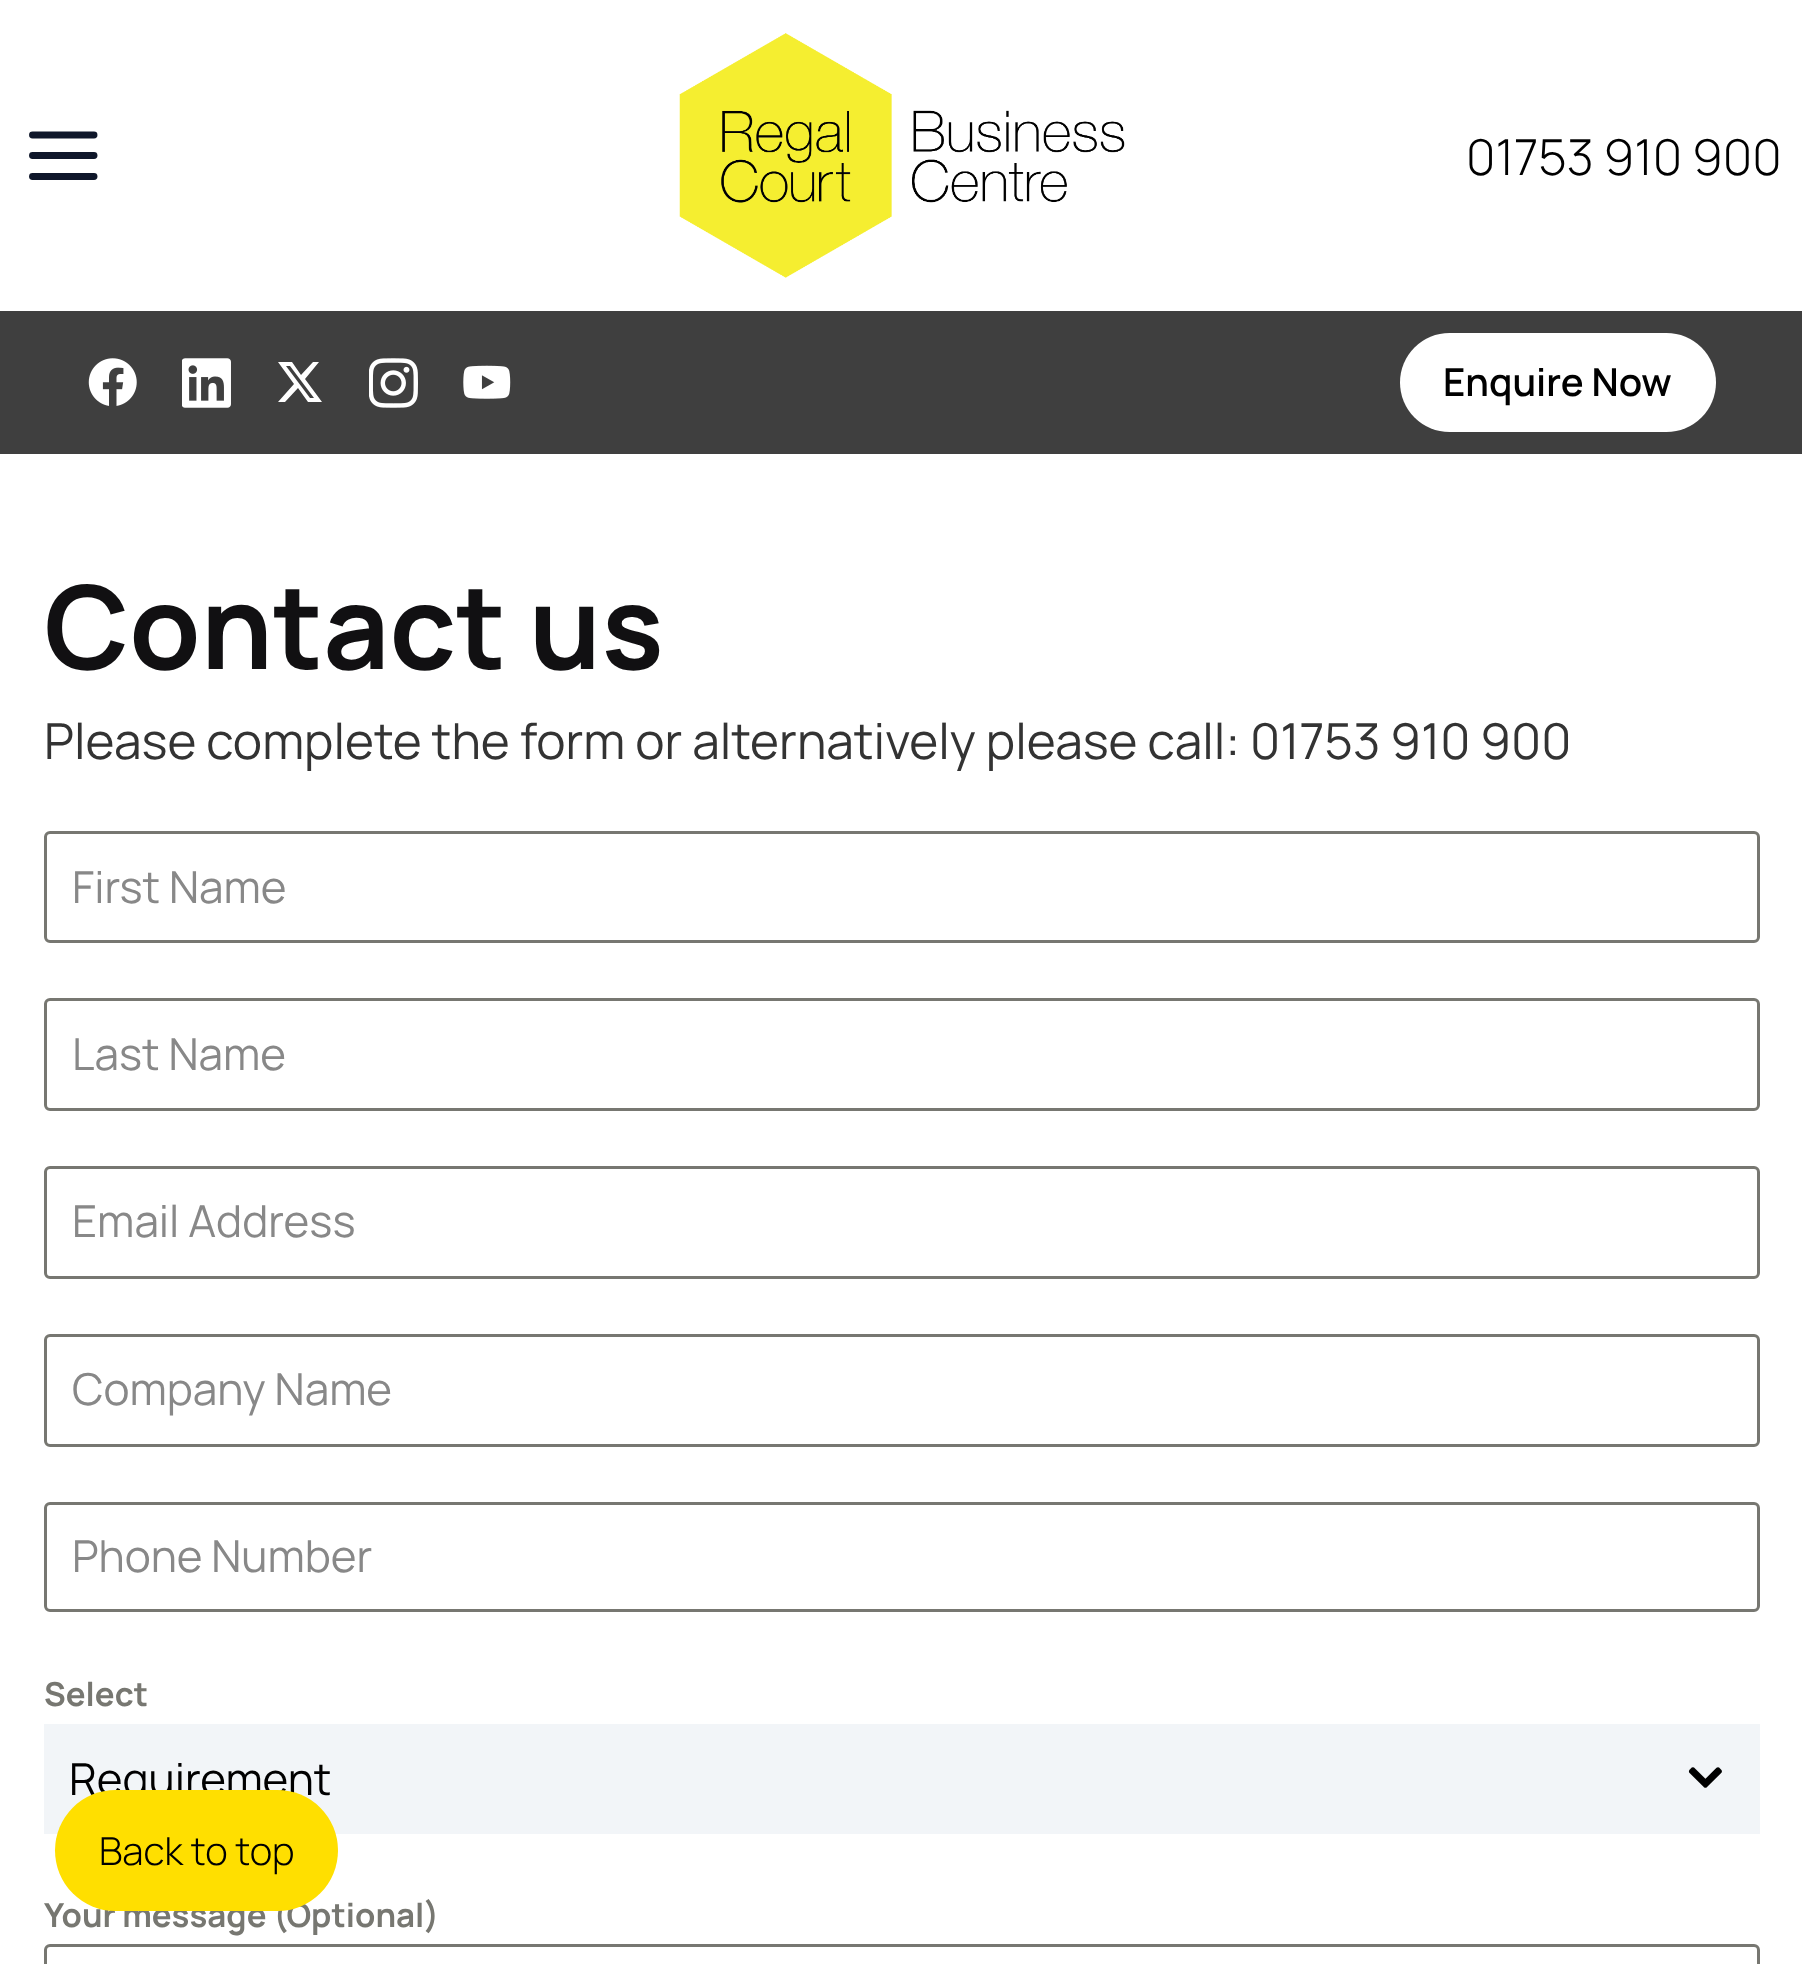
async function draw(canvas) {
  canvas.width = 1802;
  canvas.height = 1964;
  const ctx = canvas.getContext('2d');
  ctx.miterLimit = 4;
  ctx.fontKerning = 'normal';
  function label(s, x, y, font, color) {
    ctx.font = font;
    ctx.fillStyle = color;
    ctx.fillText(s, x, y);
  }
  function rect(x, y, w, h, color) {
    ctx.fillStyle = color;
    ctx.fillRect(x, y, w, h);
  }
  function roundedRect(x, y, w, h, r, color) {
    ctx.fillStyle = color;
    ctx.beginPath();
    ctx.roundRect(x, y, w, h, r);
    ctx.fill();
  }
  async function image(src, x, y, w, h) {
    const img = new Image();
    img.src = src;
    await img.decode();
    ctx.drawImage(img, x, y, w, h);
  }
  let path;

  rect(0, 0, 1802, 1964, '#fff');
  path = new Path2D('M32.5 176.5H94');
  ctx.strokeStyle = '#0f172a';
  ctx.lineWidth = 6.9;
  ctx.lineCap = 'round';
  ctx.lineJoin = 'round';
  ctx.stroke(path);
  path = new Path2D('M32.5 155.5H94');
  ctx.stroke(path);
  path = new Path2D('M32.5 135H94');
  ctx.stroke(path);
  await image('assets/img1.png', 679, 33, 446, 245);
  label('01753 910 900', 1466, 175, '300 49.5px Manrope', '#000');
  rect(0, 311, 1802, 143, '#3f3f3f');
  await image('assets/img2.png', 88, 358, 49, 48);
  await image('assets/img3.png', 182, 358, 49, 50);
  ctx.fillStyle = '#fff';
  path = new Path2D('M313 362H319L305 379L322 402H308L298 388L285 402H278L294 384L278 362H292L301 375ZM310 398H314L290 366H286Z');
  ctx.fill(path);
  await image('assets/img4.png', 369, 358, 49, 50);
  await image('assets/img5.png', 463, 365, 48, 34);
  roundedRect(1400, 333, 316, 99, 49.5, '#fff');
  label('Enquire Now', 1443, 396, '600 38.5px Manrope', '#000');
  label('Contact us', 44, 669, 'bold 115.5px Manrope', '#111012');
  label('Please complete the form or alternatively please call: 01753 910 900', 44, 759, '49.5px Manrope', '#333');
  ctx.beginPath();
  ctx.roundRect(45.5, 832.5, 1713, 109, 4.5);
  ctx.strokeStyle = '#777771';
  ctx.lineWidth = 3;
  ctx.lineJoin = 'miter';
  ctx.stroke();
  label('First Name', 72, 903, '44px Manrope', '#888');
  ctx.beginPath();
  ctx.roundRect(45.5, 999.5, 1713, 110, 4.5);
  ctx.stroke();
  label('Last Name', 72, 1070, '44px Manrope', '#888');
  ctx.beginPath();
  ctx.roundRect(45.5, 1167.5, 1713, 110, 4.5);
  ctx.stroke();
  label('Email Address', 72, 1237, '44px Manrope', '#888');
  ctx.beginPath();
  ctx.roundRect(45.5, 1335.5, 1713, 110, 4.5);
  ctx.stroke();
  label('Company Name', 72, 1405, '44px Manrope', '#888');
  ctx.beginPath();
  ctx.roundRect(45.5, 1503.5, 1713, 107, 4.5);
  ctx.stroke();
  label('Phone Number', 72, 1572, '44px Manrope', '#888');
  label('Select', 44, 1706, 'bold 33px Manrope', '#777771');
  rect(44, 1724, 1716, 110, '#f2f5f8');
  label('Requirement', 69, 1795, '44px Manrope', '#000');
  label('⌄', 1689, 1792, '33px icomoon', '#000');
  label('Your message (Optional)', 44, 1927, 'bold 33px Manrope', '#777771');
  ctx.beginPath();
  ctx.roundRect(45.5, 1945.5, 1713, 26, 4.5);
  ctx.stroke();
  roundedRect(55, 1790, 283, 121, 60.5, '#ffdf00');
  label('Back to top', 99, 1865, '300 38.5px Manrope', '#000');
}

draw(document.querySelector('canvas'));
